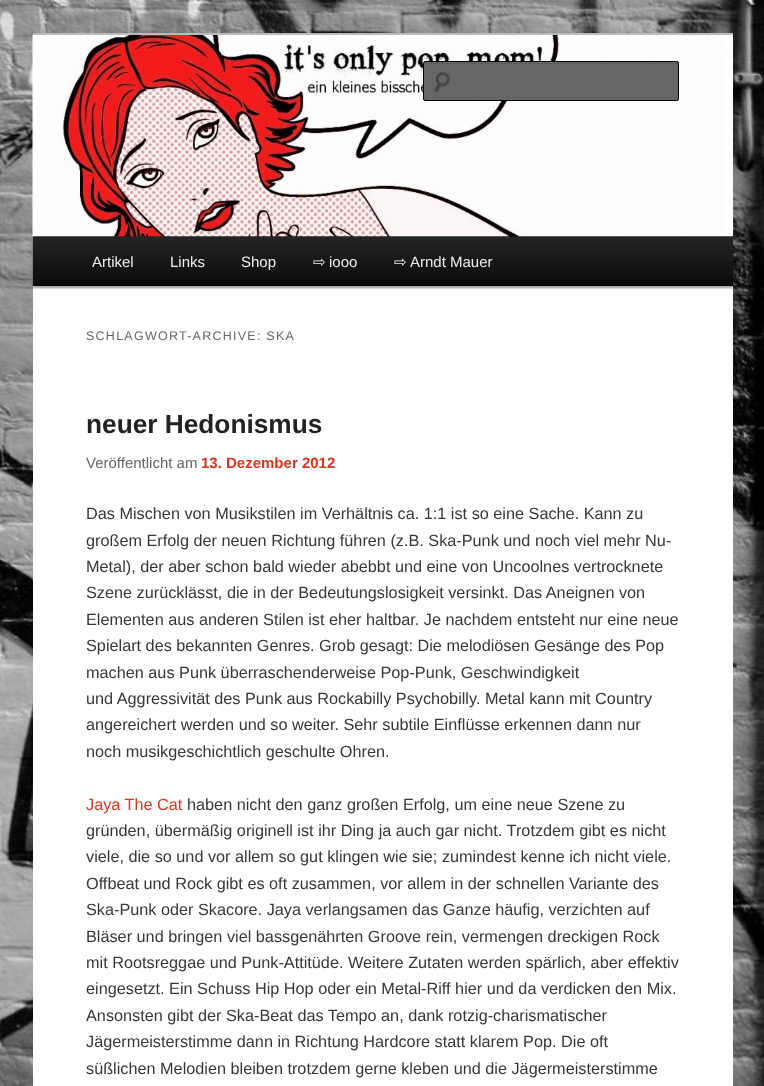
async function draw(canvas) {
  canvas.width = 764;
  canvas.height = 1086;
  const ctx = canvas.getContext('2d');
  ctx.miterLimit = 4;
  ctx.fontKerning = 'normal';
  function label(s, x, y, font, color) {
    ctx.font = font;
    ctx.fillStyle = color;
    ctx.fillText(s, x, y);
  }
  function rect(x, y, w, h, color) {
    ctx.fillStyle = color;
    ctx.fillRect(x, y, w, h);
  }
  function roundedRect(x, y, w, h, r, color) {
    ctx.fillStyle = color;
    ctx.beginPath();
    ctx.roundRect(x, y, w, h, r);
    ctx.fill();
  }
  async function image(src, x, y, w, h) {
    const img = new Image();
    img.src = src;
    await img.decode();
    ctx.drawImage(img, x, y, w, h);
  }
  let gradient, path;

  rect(0, 0, 764, 1086, '#fff');
  await image('assets/img1.png', 0, 0, 764, 1086);
  rect(33, 36, 700, 1050, '#fff');
  rect(33, 33, 700, 3, '#bbb');
  ctx.fillStyle = '#00000066';
  ctx.filter = 'blur(1px)';
  ctx.beginPath();
  ctx.rect(33, 238, 700, 50);
  ctx.fill();
  ctx.filter = 'none';
  gradient = ctx.createLinearGradient(383, 236, 383, 286);
  gradient.addColorStop(0, '#252525');
  gradient.addColorStop(1, '#0a0a0a');
  ctx.fillStyle = gradient;
  ctx.fillRect(33, 236, 700, 50);
  await image('assets/img2.png', 32, 35, 701, 202);
  roundedRect(423, 61, 256, 40, 2.5, '#666');
  await image('assets/img3.png', 434, 72, 16, 21);
  ctx.fillStyle = '#5c5c5c';
  path = new Path2D('M425 64H676C677 64 678 64 678 65V63H425C424 63 424 64 424 65C424 64 424 64 425 64Z');
  ctx.fill(path);
  ctx.beginPath();
  ctx.roundRect(423.5, 61.5, 255, 39, 2);
  ctx.strokeStyle = '#000';
  ctx.stroke();
  label('Artikel', 92, 267, '15px Liberation Sans', '#eee');
  label('Links', 170, 267, '15px Liberation Sans', '#eee');
  label('Shop', 241, 267, '15px Liberation Sans', '#eee');
  label('⇨', 313, 267, '15px DejaVu Sans', '#eee');
  label('iooo', 329, 267, '15px Liberation Sans', '#eee');
  label('⇨', 394, 267, '15px DejaVu Sans', '#eee');
  label('Arndt Mauer', 410, 267, '15px Liberation Sans', '#eee');
  ctx.letterSpacing = '1.25px';
  label('SCHLAGWORT-ARCHIVE: SKA', 86, 340, '12.5px Liberation Sans', '#666');
  ctx.letterSpacing = '0px';
  label('neuer Hedonismus', 86, 433, 'bold 26.25px Liberation Sans', '#222');
  label('Veröffentlicht am', 86, 468, '15px Liberation Sans', '#666');
  label('13. Dezember 2012', 201, 468, 'bold 15px Liberation Sans', '#e0331b');
  label('Das Mischen von Musikstilen im Verhältnis ca. 1:1 ist so eine Sache. Kann zu', 86, 519, '16.25px Liberation Sans', '#373737');
  label('großem Erfolg der neuen Richtung führen (z.B. Ska-Punk und noch viel mehr Nu-', 86, 546, '16.25px Liberation Sans', '#373737');
  label('Metal), der aber schon bald wieder abebbt und eine von Uncoolnes vertrocknete', 86, 572, '16.25px Liberation Sans', '#373737');
  label('Szene zurücklässt, die in der Bedeutungslosigkeit versinkt. Das Aneignen von', 86, 598, '16.25px Liberation Sans', '#373737');
  label('Elementen aus anderen Stilen ist eher haltbar. Je nachdem entsteht nur eine neue', 86, 625, '16.25px Liberation Sans', '#373737');
  label('Spielart des bekannten Genres. Grob gesagt: Die melodiösen Gesänge des Pop', 86, 651, '16.25px Liberation Sans', '#373737');
  label('machen aus Punk überraschenderweise Pop-Punk, Geschwindigkeit', 86, 678, '16.25px Liberation Sans', '#373737');
  label('und Aggressivität des Punk aus Rockabilly Psychobilly. Metal kann mit Country', 86, 704, '16.25px Liberation Sans', '#373737');
  label('angereichert werden und so weiter. Sehr subtile Einflüsse erkennen dann nur', 86, 730, '16.25px Liberation Sans', '#373737');
  label('noch musikgeschichtlich geschulte Ohren.', 86, 757, '16.25px Liberation Sans', '#373737');
  label('Jaya The Cat', 86, 810, '16.25px Liberation Sans', '#e0331b');
  label('haben nicht den ganz großen Erfolg, um eine neue Szene zu', 187, 810, '16.25px Liberation Sans', '#373737');
  label('gründen, übermäßig originell ist ihr Ding ja auch gar nicht. Trotzdem gibt es nicht', 86, 836, '16.25px Liberation Sans', '#373737');
  label('viele, die so und vor allem so gut klingen wie sie; zumindest kenne ich nicht viele.', 86, 862, '16.25px Liberation Sans', '#373737');
  label('Offbeat und Rock gibt es oft zusammen, vor allem in der schnellen Variante des', 86, 889, '16.25px Liberation Sans', '#373737');
  label('Ska-Punk oder Skacore. Jaya verlangsamen das Ganze häufig, verzichten auf', 86, 915, '16.25px Liberation Sans', '#373737');
  label('Bläser und bringen viel bassgenährten Groove rein, vermengen dreckigen Rock', 86, 942, '16.25px Liberation Sans', '#373737');
  label('mit Rootsreggae und Punk-Attitüde. Weitere Zutaten werden spärlich, aber effektiv', 86, 968, '16.25px Liberation Sans', '#373737');
  label('eingesetzt. Ein Schuss Hip Hop oder ein Metal-Riff hier und da verdicken den Mix.', 86, 994, '16.25px Liberation Sans', '#373737');
  label('Ansonsten gibt der Ska-Beat das Tempo an, dank rotzig-charismatischer', 86, 1021, '16.25px Liberation Sans', '#373737');
  label('Jägermeisterstimme dann in Richtung Hardcore statt klarem Pop. Die oft', 86, 1047, '16.25px Liberation Sans', '#373737');
  label('süßlichen Melodien bleiben trotzdem gerne kleben und die Jägermeisterstimme', 86, 1074, '16.25px Liberation Sans', '#373737');
}

draw(document.querySelector('canvas'));
